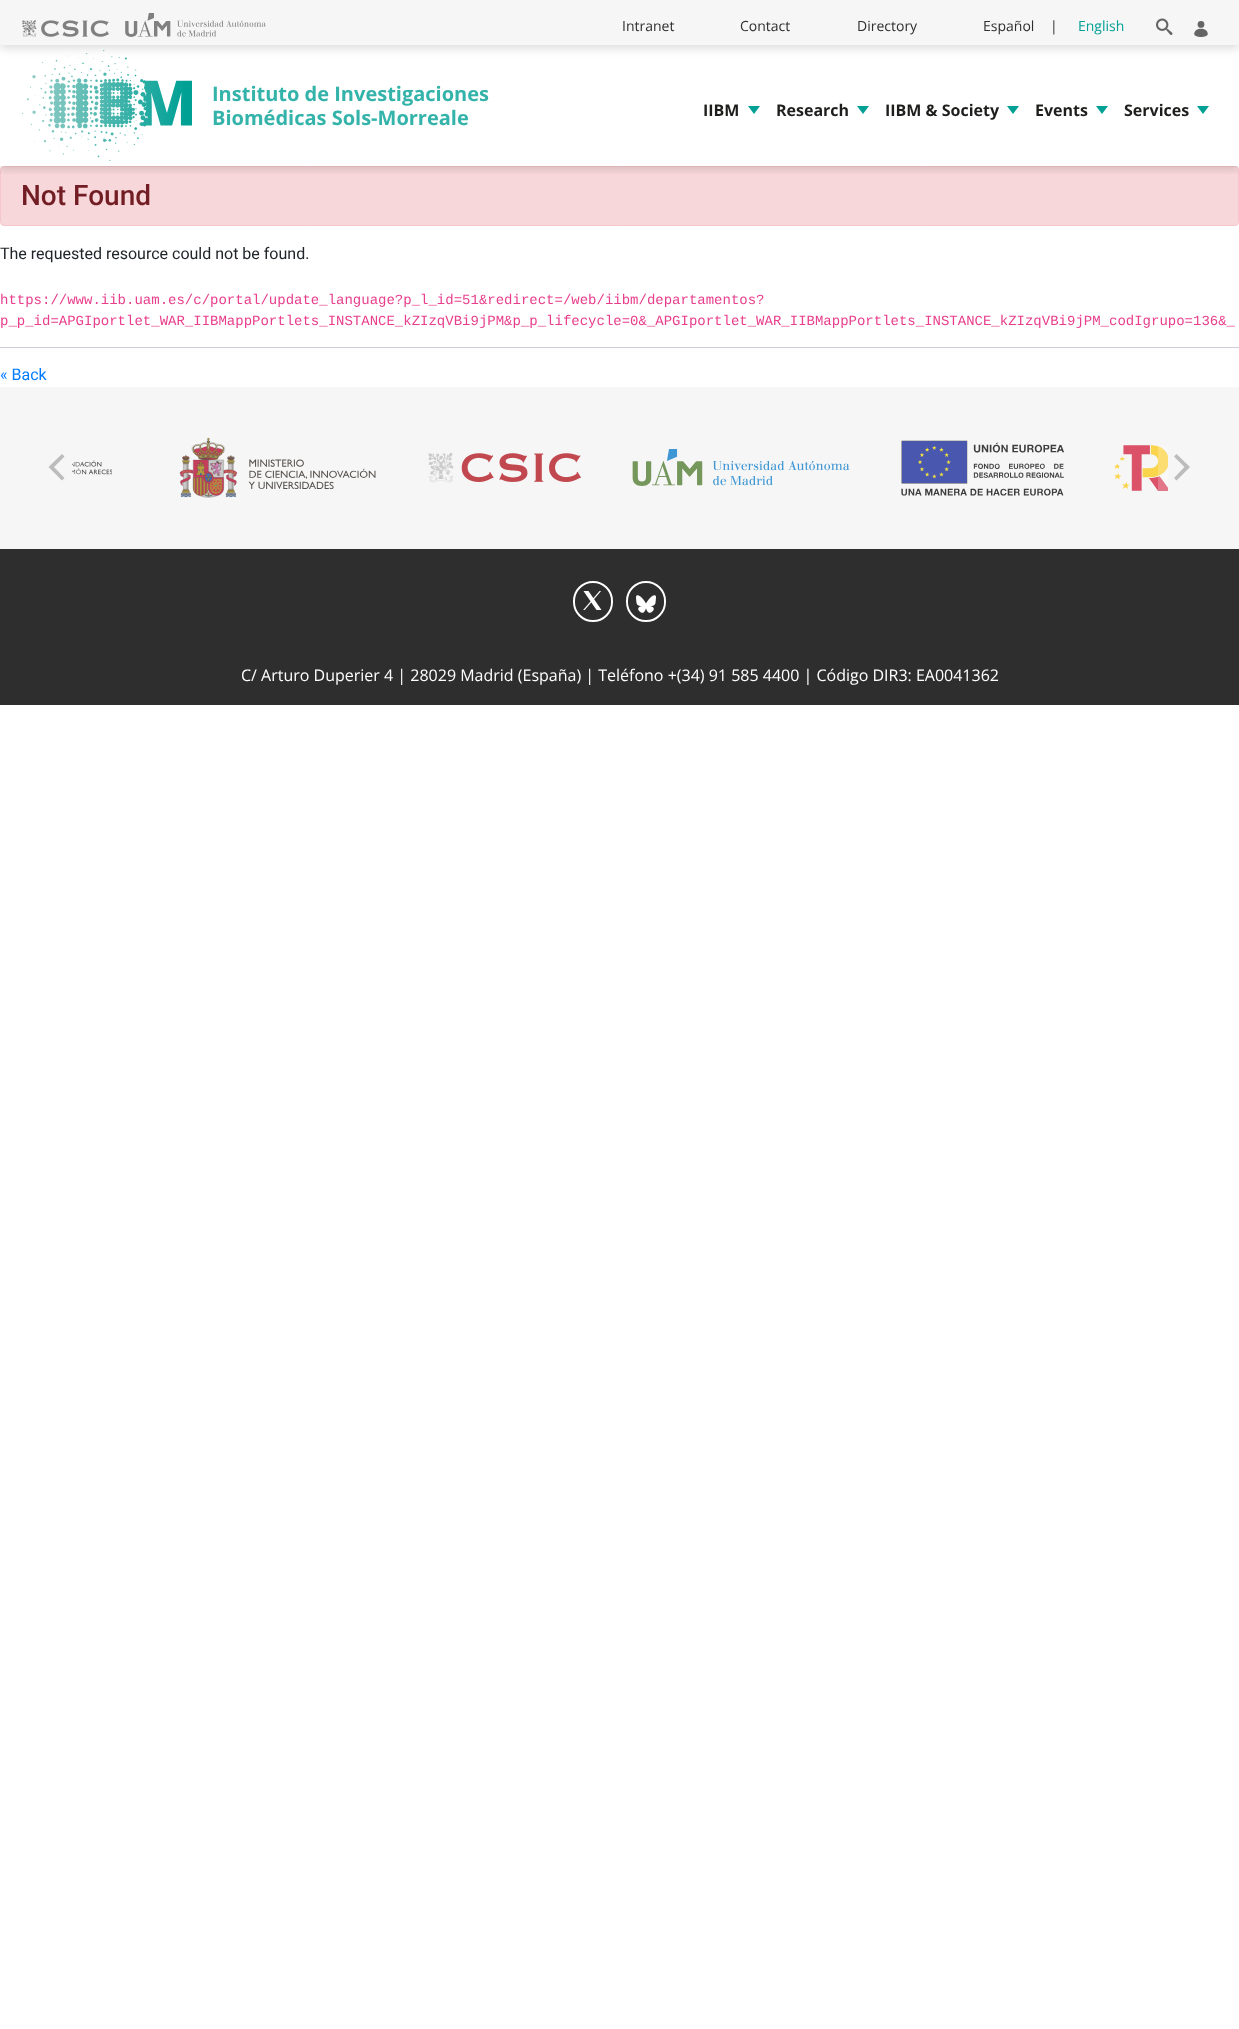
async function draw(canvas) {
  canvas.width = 1239;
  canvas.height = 2029;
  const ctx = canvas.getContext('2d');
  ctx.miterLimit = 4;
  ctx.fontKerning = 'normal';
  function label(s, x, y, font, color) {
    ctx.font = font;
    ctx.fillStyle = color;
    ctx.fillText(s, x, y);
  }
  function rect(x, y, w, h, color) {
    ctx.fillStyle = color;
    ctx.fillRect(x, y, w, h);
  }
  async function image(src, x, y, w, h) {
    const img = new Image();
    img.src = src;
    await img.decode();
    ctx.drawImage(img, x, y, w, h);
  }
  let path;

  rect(0, 0, 1239, 2029, '#fff');
  ctx.fillStyle = '#f8d7da';
  ctx.beginPath();
  ctx.roundRect(0.5, 166.5, 1238, 59, 3.5);
  ctx.fill();
  ctx.strokeStyle = '#f5c6cb';
  ctx.stroke();
  ctx.save();
  ctx.beginPath();
  ctx.rect(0, 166, 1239, 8);
  ctx.clip();
  ctx.fillStyle = '#0000001f';
  ctx.filter = 'blur(4px)';
  ctx.beginPath();
  ctx.rect(0, 49, 1239, 121);
  ctx.fill();
  ctx.filter = 'none';
  ctx.restore();
  await image('assets/img5.png', 22, 50, 170, 111);
  ctx.fillStyle = '#0000001f';
  ctx.filter = 'blur(4px)';
  ctx.beginPath();
  ctx.rect(0, 4, 1239, 45);
  ctx.fill();
  ctx.filter = 'none';
  rect(0, 0, 1239, 45, '#f6f6f6');
  await image('assets/img1.png', 22, 20, 87, 17);
  await image('assets/img2.png', 125, 13, 141, 24);
  label('Intranet', 622, 31, '14px Open Sans', '#2e2e2e');
  label('Contact', 740, 31, '14px Open Sans', '#2e2e2e');
  label('Directory', 857, 31, '14px Open Sans', '#2e2e2e');
  label('Español', 983, 31, '14px Open Sans', '#2e2e2e');
  label('|', 1050, 31, '14px Open Sans', '#2e2e2e');
  label('English', 1078, 31, '14px Open Sans', '#00a095');
  await image('assets/img3.png', 1156, 18, 17, 17);
  await image('assets/img4.png', 1194, 21, 14, 16);
  label('Instituto de Investigaciones', 212, 101, 'bold 20px Open Sans', '#33b3aa');
  label('Biomédicas Sols-Morreale', 212, 125, 'bold 20px Open Sans', '#33b3aa');
  label('IIBM', 703, 116, 'bold 16px Open Sans', '#1e1e1c');
  ctx.fillStyle = '#00a095';
  path = new Path2D('M748 106H760L754 114Z');
  ctx.fill(path);
  label('Research', 776, 116, 'bold 16px Open Sans', '#1e1e1c');
  ctx.fillStyle = '#00a095';
  path = new Path2D('M857 106H869L863 114Z');
  ctx.fill(path);
  label('IIBM & Society', 885, 116, 'bold 16px Open Sans', '#1e1e1c');
  ctx.fillStyle = '#00a095';
  path = new Path2D('M1007 106H1019L1013 114Z');
  ctx.fill(path);
  label('Events', 1035, 116, 'bold 16px Open Sans', '#1e1e1c');
  ctx.fillStyle = '#00a095';
  path = new Path2D('M1096 106H1108L1102 114Z');
  ctx.fill(path);
  label('Services', 1124, 116, 'bold 16px Open Sans', '#1e1e1c');
  ctx.fillStyle = '#00a095';
  path = new Path2D('M1197 106H1209L1203 114Z');
  ctx.fill(path);
  label('Not Found', 21, 205, '500 28px Roboto', '#721c24');
  label('The requested resource could not be found.', 0, 259, '16px Roboto', '#212529');
  label('https://www.iib.uam.es/c/portal/update_language?p_l_id=51&redirect=/web/iibm/departamentos?', 0, 304, '14px Liberation Mono', '#e83e8c');
  label('p_p_id=APGIportlet_WAR_IIBMappPortlets_INSTANCE_kZIzqVBi9jPM&p_p_lifecycle=0&_APGIportlet_WAR_IIBMappPortlets_INSTANCE_kZIzqVBi9jPM_codIgrupo=136&_', 0, 325, '14px Liberation Mono', '#e83e8c');
  rect(0, 347, 1239, 1, '#cdced9');
  label('« Back', 0, 380, '16px Roboto', '#007bff');
  rect(0, 387, 1239, 162, '#f6f6f6');
  await image('assets/img6.png', 72, 460, 40, 15);
  rect(72, 461, 10, 14, '#ffffff38');
  ctx.fillStyle = '#bcbcbc';
  path = new Path2D('M48.5 467L62 480.5L64.5 478L54 467L64.5 456.5L62 454Z');
  ctx.fill(path);
  await image('assets/img7.png', 179, 437, 197, 61);
  await image('assets/img8.png', 428, 452, 153, 31);
  await image('assets/img9.png', 632, 449, 218, 37);
  await image('assets/img10.png', 901, 440, 163, 56);
  await image('assets/img11.png', 1114, 445, 54, 46);
  rect(1158, 446, 10, 44, '#ffffff38');
  ctx.fillStyle = '#bcbcbc';
  path = new Path2D('M1190 467L1176.5 454L1174 456.5L1184.5 467L1174 478L1176.5 480.5Z');
  ctx.fill(path);
  rect(0, 549, 1239, 156, '#2e2e2e');
  ctx.beginPath();
  ctx.roundRect(574, 582, 38, 39, 19);
  ctx.strokeStyle = '#fff';
  ctx.lineWidth = 2;
  ctx.stroke();
  await image('assets/img12.png', 575, 585, 36, 26);
  await image('assets/img13.png', 583, 591, 19, 19);
  await image('assets/img15.png', 636, 595, 20, 18);
  ctx.beginPath();
  ctx.roundRect(627, 582, 38, 39, 19);
  ctx.stroke();
  await image('assets/img14.png', 628, 585, 36, 26);
  label('C/ Arturo Duperier 4 | 28029 Madrid (España) | Teléfono +(34) 91 585 4400 | Código DIR3: EA0041362', 241, 681, '16px Open Sans', '#fff');
}

draw(document.querySelector('canvas'));
